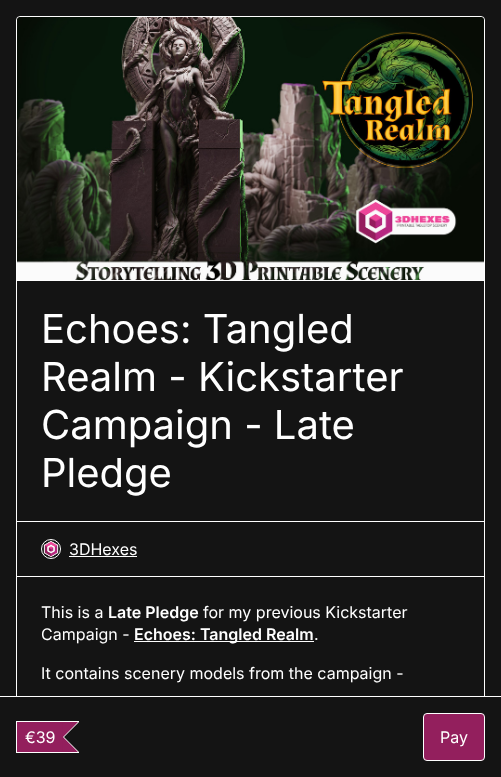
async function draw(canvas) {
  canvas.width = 501;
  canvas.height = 777;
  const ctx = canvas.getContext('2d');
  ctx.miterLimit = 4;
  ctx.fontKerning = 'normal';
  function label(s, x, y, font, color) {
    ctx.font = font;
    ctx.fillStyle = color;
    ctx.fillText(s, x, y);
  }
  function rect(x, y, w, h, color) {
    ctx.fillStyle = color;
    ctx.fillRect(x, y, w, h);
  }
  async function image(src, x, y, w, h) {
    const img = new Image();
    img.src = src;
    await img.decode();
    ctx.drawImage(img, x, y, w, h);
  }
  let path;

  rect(0, 0, 501, 777, '#141414');
  ctx.beginPath();
  ctx.roundRect(16.5, 16.5, 468, 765, 3.5);
  ctx.strokeStyle = '#fff';
  ctx.stroke();
  rect(17, 280, 467, 1, '#fff');
  await image('assets/img1.png', 17, 17, 467, 263);
  label('Echoes: Tangled', 41, 343, '40px Inter', '#fff');
  label('Realm - Kickstarter', 41, 391, '40px Inter', '#fff');
  label('Campaign - Late', 41, 439, '40px Inter', '#fff');
  label('Pledge', 41, 487, '40px Inter', '#fff');
  rect(17, 521, 467, 1, '#fff');
  ctx.beginPath();
  ctx.arc(51, 549, 9.5, 0, 2 * Math.PI);
  ctx.stroke();
  await image('assets/img2.png', 43, 540, 16, 18);
  label('3DHexes', 69, 555, '16px Inter', '#fff');
  rect(69, 556, 68, 1, '#fff');
  rect(17, 576, 467, 1, '#fff');
  label('This is a', 41, 618, '16px Inter', '#fff');
  label('Late Pledge', 108, 618, '600 16px Inter', '#fff');
  label('for my previous Kickstarter', 203, 618, '16px Inter', '#fff');
  label('Campaign -', 41, 640, '16px Inter', '#fff');
  rect(134, 641, 180, 1, '#fff');
  label('Echoes: Tangled Realm', 134, 640, '600 16px Inter', '#fff');
  label('.', 314, 640, '16px Inter', '#fff');
  label('It contains scenery models from the campaign -', 41, 679, '16px Inter', '#fff');
  rect(0, 696, 501, 1, '#fff');
  rect(16, 697, 469, 80, '#141414');
  rect(16, 721, 63, 1, '#fff');
  rect(16, 752, 63, 1, '#fff');
  rect(16, 721, 1, 32, '#fff');
  rect(17, 722, 46, 30, '#931f5d');
  ctx.fillStyle = '#fff';
  path = new Path2D('M63 722H79L64 737ZM79 752H63L64 737Z');
  ctx.fill(path);
  rect(63, 736, 1, 2, '#fff');
  ctx.fillStyle = '#931f5d';
  path = new Path2D('M62 722H78L63 737ZM78 752H62L63 737Z');
  ctx.fill(path);
  label('€39', 25, 743, '16px Inter', '#fff');
  ctx.fillStyle = '#931f5d';
  ctx.beginPath();
  ctx.roundRect(423.5, 713.5, 61, 47, 3.5);
  ctx.fill();
  ctx.stroke();
  label('Pay', 440, 743, '16px Inter', '#fff');
}

draw(document.querySelector('canvas'));
